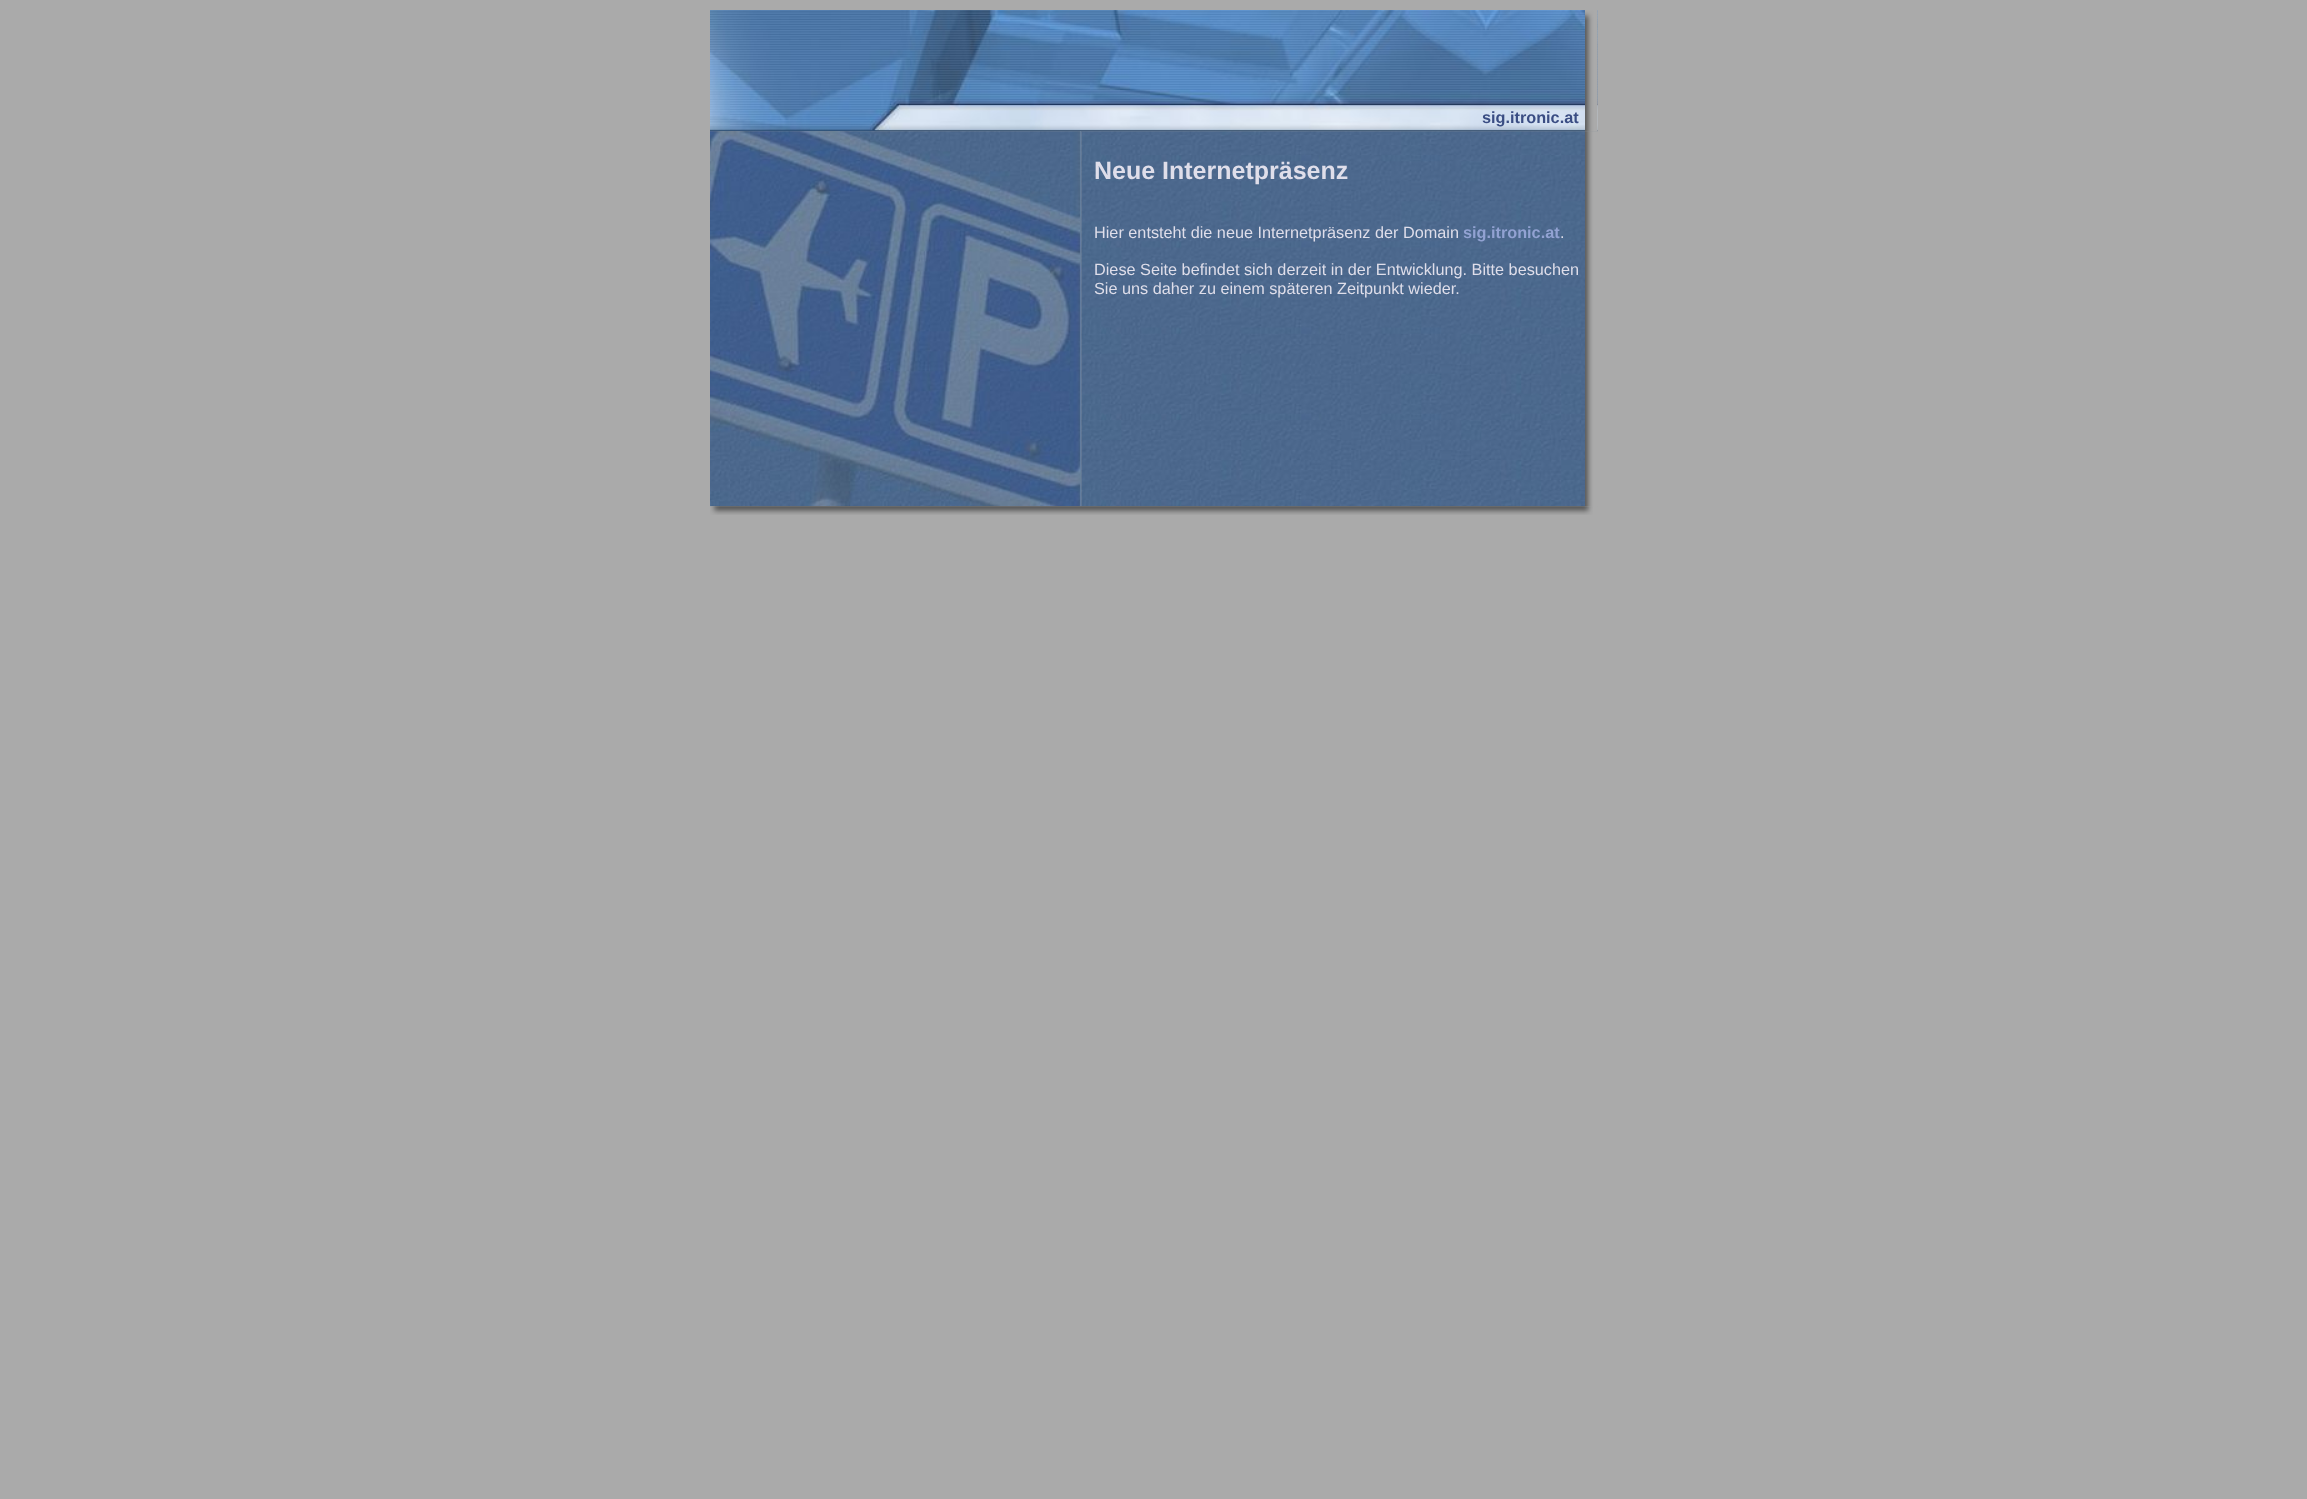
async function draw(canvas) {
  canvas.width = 2307;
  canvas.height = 1499;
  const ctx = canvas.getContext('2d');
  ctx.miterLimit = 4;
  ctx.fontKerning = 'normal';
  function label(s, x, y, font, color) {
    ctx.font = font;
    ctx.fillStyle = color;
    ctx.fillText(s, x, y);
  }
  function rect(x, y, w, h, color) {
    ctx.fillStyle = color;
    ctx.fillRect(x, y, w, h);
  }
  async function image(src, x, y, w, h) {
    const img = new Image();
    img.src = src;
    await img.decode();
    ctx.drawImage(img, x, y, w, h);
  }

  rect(0, 0, 2307, 1499, '#aaa');
  await image('assets/img1.png', 710, 10, 875, 122);
  label('sig.itronic.at', 1482, 123, 'bold 16.25px Liberation Sans', '#3a4d83');
  await image('assets/img2.png', 1585, 10, 13, 122);
  await image('assets/img3.png', 710, 131, 372, 376);
  await image('assets/img4.png', 1081, 131, 504, 376);
  label('Neue Internetpräsenz', 1094, 179, 'bold 25px Liberation Sans', '#dfdeea');
  label('Hier entsteht die neue Internetpräsenz der Domain', 1094, 238, '16.25px Liberation Sans', '#dfdeea');
  label('sig.itronic.at', 1463, 238, 'bold 16.25px Liberation Sans', '#92a2d2');
  label('.', 1560, 238, '16.25px Liberation Sans', '#dfdeea');
  label('Diese Seite befindet sich derzeit in der Entwicklung. Bitte besuchen', 1094, 275, '16.25px Liberation Sans', '#dfdeea');
  label('Sie uns daher zu einem späteren Zeitpunkt wieder.', 1094, 294, '16.25px Liberation Sans', '#dfdeea');
  await image('assets/img5.png', 1585, 131, 13, 376);
  await image('assets/img6.png', 710, 506, 883, 9);
}

draw(document.querySelector('canvas'));
